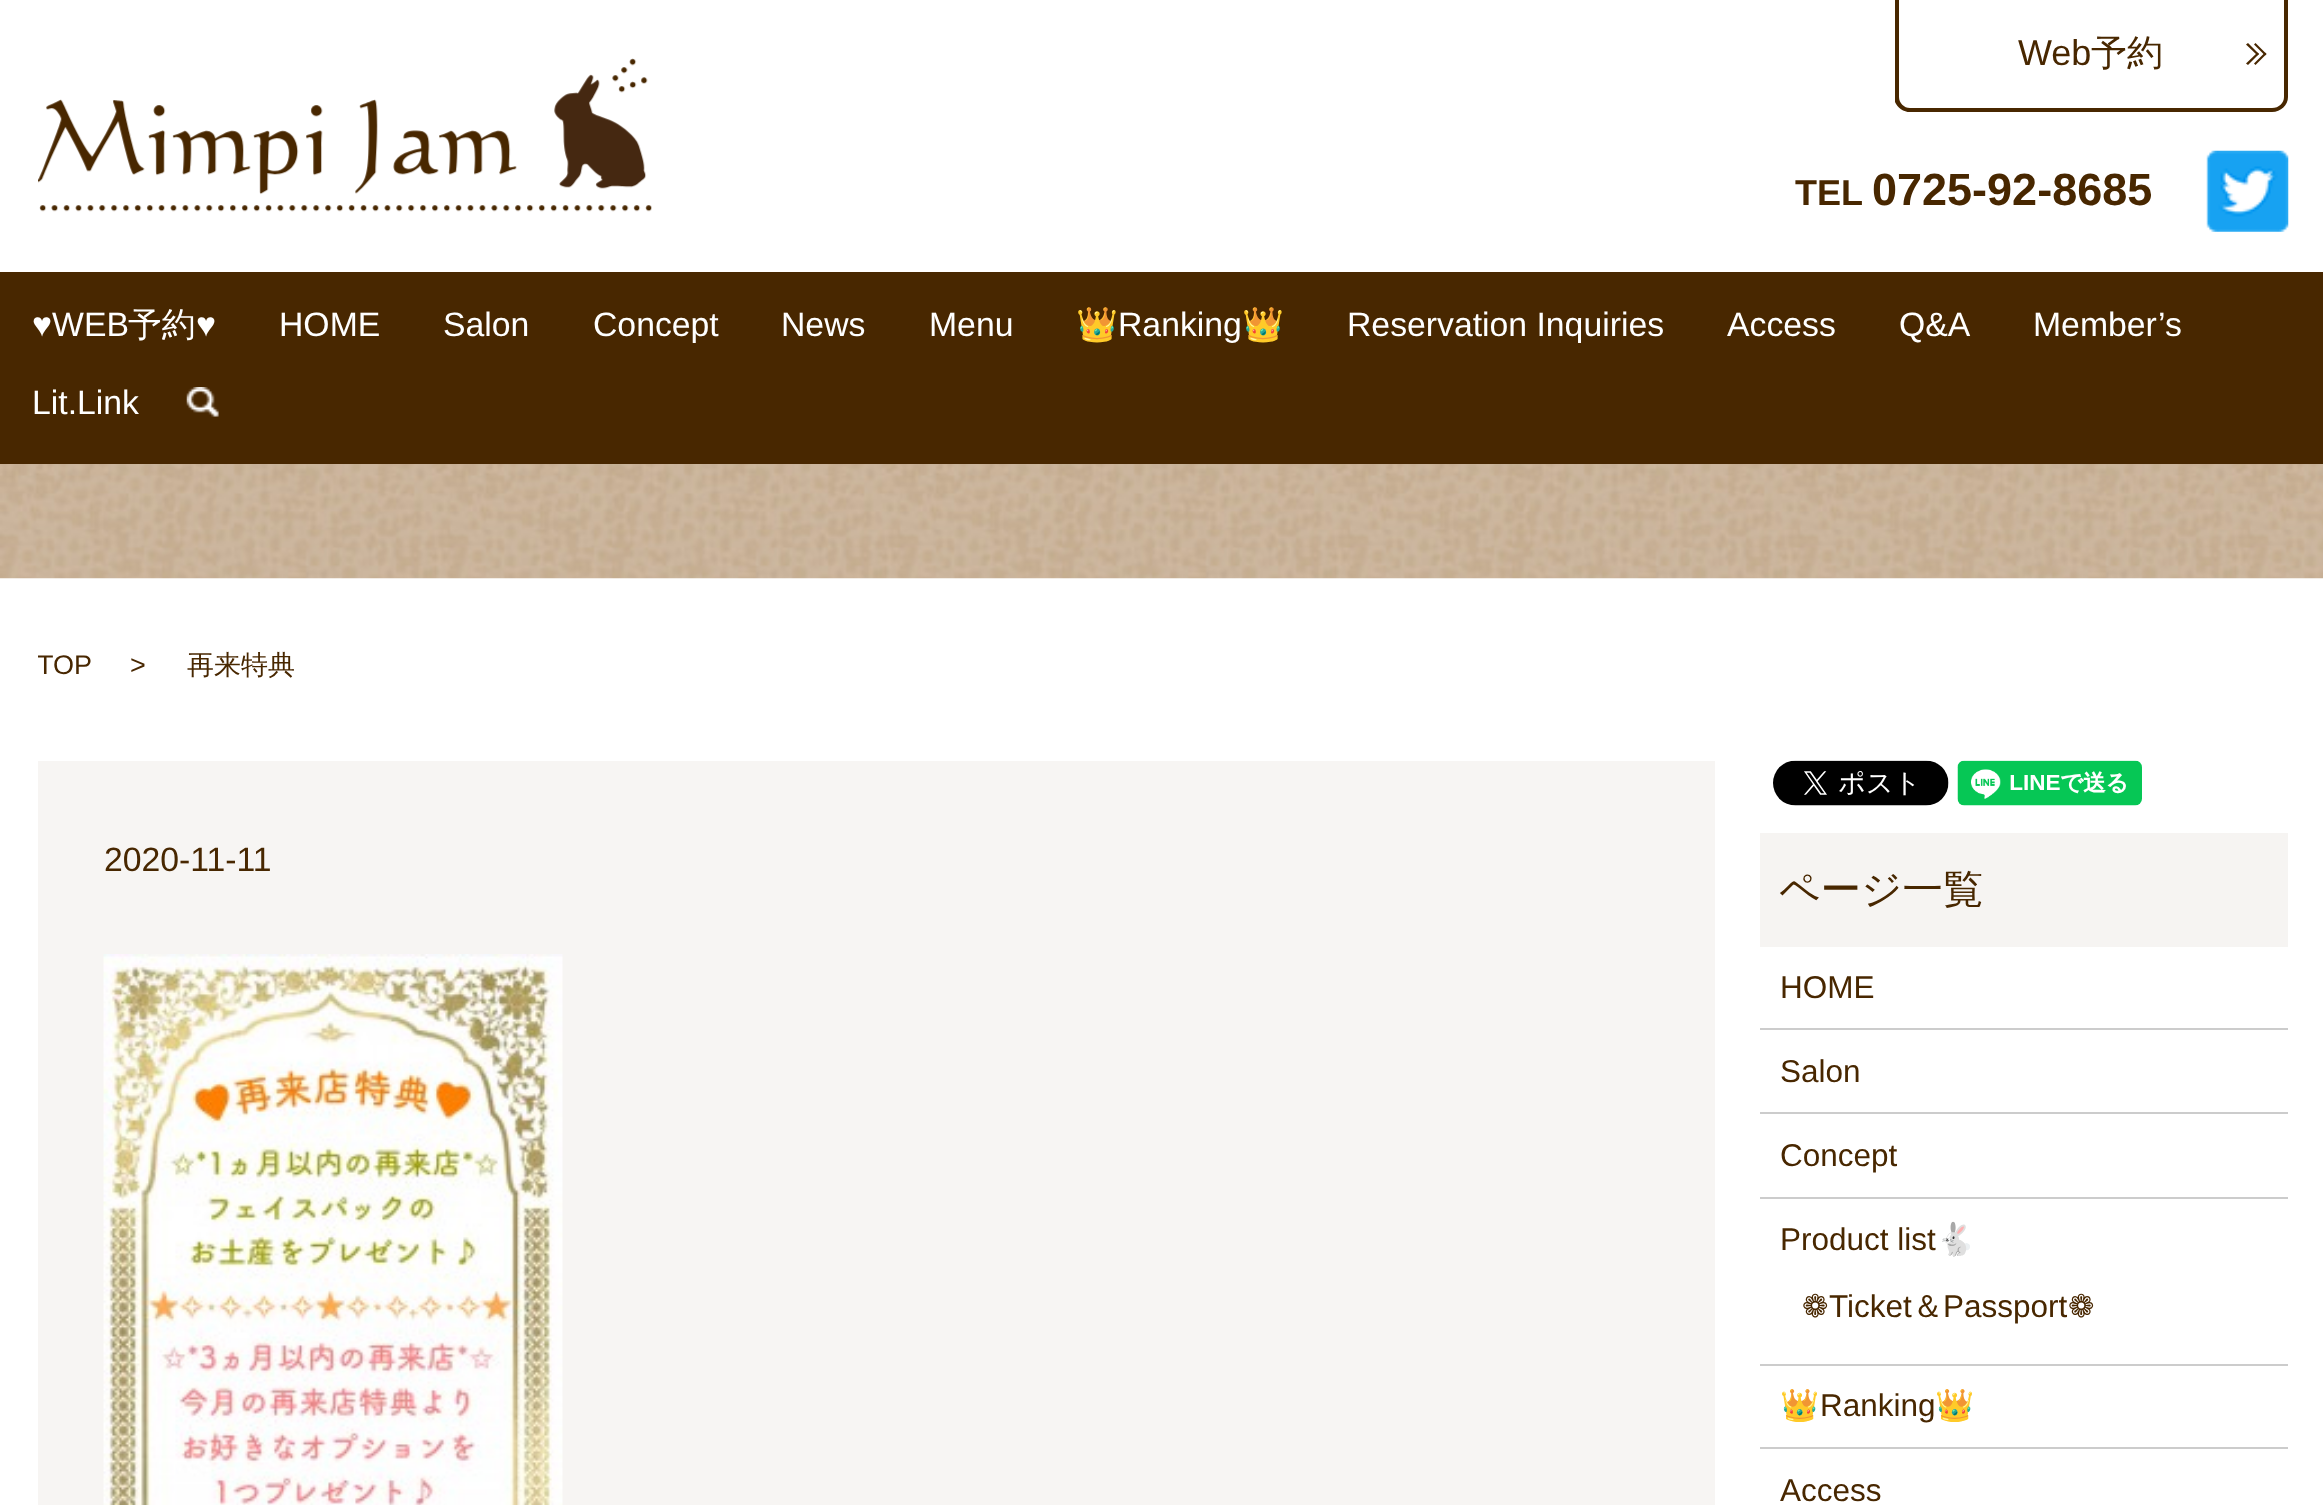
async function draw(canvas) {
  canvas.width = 2323;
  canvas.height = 1505;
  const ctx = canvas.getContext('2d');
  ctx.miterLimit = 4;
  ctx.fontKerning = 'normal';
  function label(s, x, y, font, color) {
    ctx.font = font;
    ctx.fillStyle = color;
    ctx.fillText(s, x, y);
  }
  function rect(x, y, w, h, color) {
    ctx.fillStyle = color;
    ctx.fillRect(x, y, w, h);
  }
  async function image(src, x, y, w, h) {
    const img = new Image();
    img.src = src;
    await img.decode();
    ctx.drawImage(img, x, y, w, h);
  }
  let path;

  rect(0, 0, 2323, 1505, '#fff');
  ctx.save();
  ctx.beginPath();
  ctx.rect(1895, 0, 393, 115);
  ctx.clip();
  ctx.fillStyle = '#482700';
  path = new Path2D('M1894 0H2288V97C2288 105 2281 112 2272 112H1910C1902 112 1894 105 1894 97ZM1899 0H2284V97C2284 103 2279 108 2272 108H1910C1904 108 1899 103 1899 97Z');
  ctx.fill(path, 'evenodd');
  ctx.restore();
  label('Web', 2018, 65, '36px Liberation Sans', '#482700');
  label('予約', 2091, 65, '500 36px WenQuanYi Zen Hei', '#482700');
  path = new Path2D('M2248 43L2259 54L2257.5 55.5L2246 44.5Z');
  ctx.fill(path);
  path = new Path2D('M2257.5 52.5L2259 54L2248 65L2246 63.5Z');
  ctx.fill(path);
  path = new Path2D('M2255.5 43L2266.5 54L2265 55.5L2254 44.5Z');
  ctx.fill(path);
  path = new Path2D('M2265 52.5L2266.5 54L2255.5 65L2254 63.5Z');
  ctx.fill(path);
  await image('assets/img1.png', 38, 58, 614, 154);
  label('TEL', 1795, 205, 'bold 36px Liberation Sans', '#482700');
  label('0725-92-8685', 1872, 205, 'bold 45px Liberation Sans', '#482700');
  await image('assets/img2.png', 2206, 150, 83, 82);
  rect(0, 272, 2323, 192, '#482700');
  label('♥WEB', 32, 336, '33.75px Liberation Sans', '#fff');
  label('予約', 128, 336, '500 33.75px WenQuanYi Zen Hei', '#fff');
  label('♥', 196, 336, '33.75px Liberation Sans', '#fff');
  label('HOME', 279, 336, '33.75px Liberation Sans', '#fff');
  label('Salon', 443, 336, '33.75px Liberation Sans', '#fff');
  label('Concept', 593, 336, '33.75px Liberation Sans', '#fff');
  label('News', 781, 336, '33.75px Liberation Sans', '#fff');
  label('Menu', 929, 336, '33.75px Liberation Sans', '#fff');
  label('👑', 1076, 336, '33.75px Noto Color Emoji', '#fff');
  label('Ranking', 1118, 336, '33.75px Liberation Sans', '#fff');
  label('👑', 1242, 336, '33.75px Noto Color Emoji', '#fff');
  label('Reservation Inquiries', 1347, 336, '33.75px Liberation Sans', '#fff');
  label('Access', 1727, 336, '33.75px Liberation Sans', '#fff');
  label('Q&A', 1899, 336, '33.75px Liberation Sans', '#fff');
  label('Member’s', 2033, 336, '33.75px Liberation Sans', '#fff');
  label('Lit.Link', 32, 414, '33.75px Liberation Sans', '#fff');
  await image('assets/img3.png', 186, 387, 33, 30);
  await image('assets/img4.png', 0, 464, 2323, 115);
  ctx.save();
  ctx.beginPath();
  ctx.rect(38, 619, 2250, 97);
  ctx.clip();
  label('TOP', 37, 674, '27px Liberation Sans', '#482700');
  ctx.restore();
  label('>', 130, 674, '27px Liberation Sans', '#482700');
  label('再来特典', 187, 674, '500 27px WenQuanYi Zen Hei', '#482700');
  rect(38, 761, 1677, 744, '#f7f5f3');
  label('2020-11-11', 104, 871, '33.75px Liberation Sans', '#482700');
  await image('assets/img5.png', 103, 954, 460, 551);
  await image('assets/img6.png', 1773, 760, 176, 46);
  await image('assets/img7.png', 1957, 760, 185, 46);
  rect(1760, 833, 528, 114, '#f6f4f2');
  label('ページ一覧', 1779, 903, '500 40.5px WenQuanYi Zen Hei', '#482700');
  rect(1760, 1028, 528, 2, '#ccc');
  label('HOME', 1780, 998, '31.5px Liberation Sans', '#482700');
  rect(1760, 1112, 528, 2, '#ccc');
  label('Salon', 1780, 1082, '31.5px Liberation Sans', '#482700');
  rect(1760, 1197, 528, 2, '#ccc');
  label('Concept', 1780, 1166, '31.5px Liberation Sans', '#482700');
  rect(1760, 1364, 528, 2, '#ccc');
  label('Product list', 1780, 1250, '31.5px Liberation Sans', '#482700');
  label('🐇', 1936, 1250, '31.5px Noto Color Emoji', '#482700');
  label('❁', 1802, 1317, '31.5px DejaVu Sans', '#482700');
  label('Ticket', 1829, 1317, '31.5px Liberation Sans', '#482700');
  label('＆', 1912, 1317, '500 31.5px WenQuanYi Zen Hei', '#482700');
  label('Passport', 1943, 1317, '31.5px Liberation Sans', '#482700');
  label('❁', 2068, 1317, '31.5px DejaVu Sans', '#482700');
  rect(1760, 1447, 528, 2, '#ccc');
  label('👑', 1780, 1416, '31.5px Noto Color Emoji', '#482700');
  label('Ranking', 1820, 1416, '31.5px Liberation Sans', '#482700');
  label('👑', 1935, 1416, '31.5px Noto Color Emoji', '#482700');
  label('Access', 1780, 1501, '31.5px Liberation Sans', '#482700');
}

draw(document.querySelector('canvas'));
